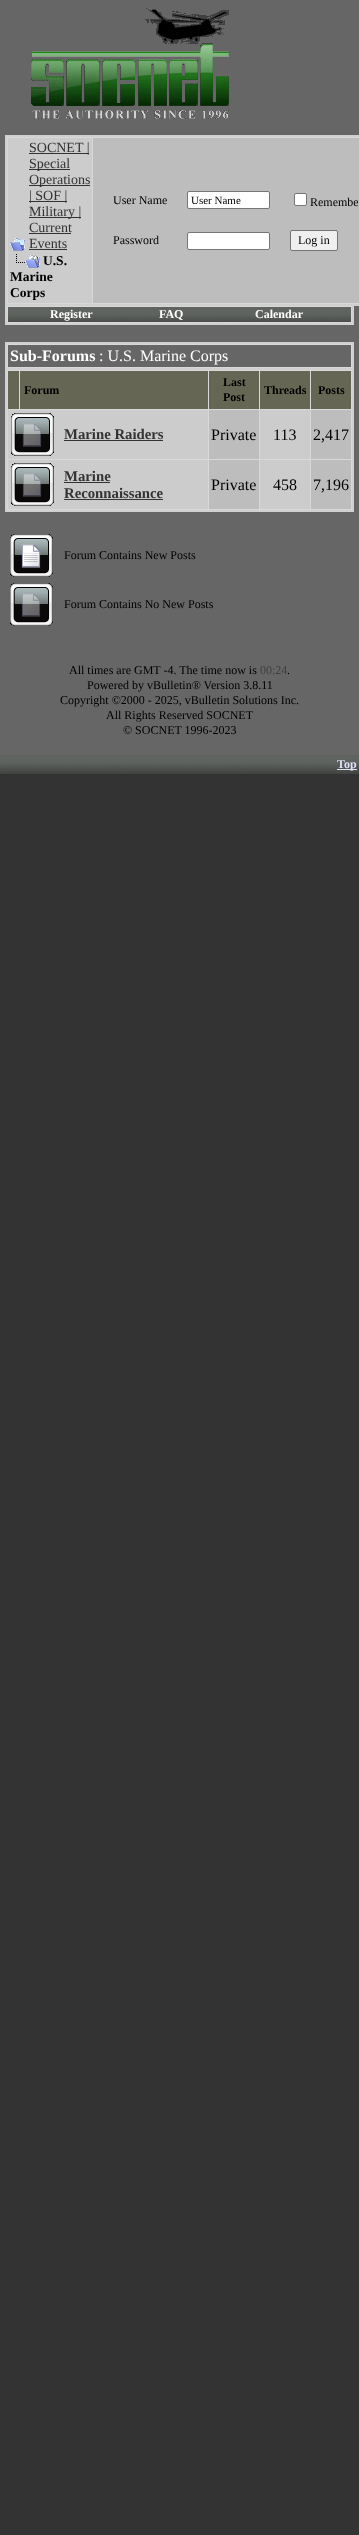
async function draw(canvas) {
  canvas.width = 359;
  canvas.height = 2535;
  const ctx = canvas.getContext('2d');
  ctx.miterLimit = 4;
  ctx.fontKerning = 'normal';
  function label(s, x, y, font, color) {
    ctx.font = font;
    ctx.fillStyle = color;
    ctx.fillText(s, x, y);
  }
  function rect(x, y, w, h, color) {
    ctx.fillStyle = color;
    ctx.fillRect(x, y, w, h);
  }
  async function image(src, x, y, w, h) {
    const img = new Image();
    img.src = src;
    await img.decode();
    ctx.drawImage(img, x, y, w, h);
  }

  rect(0, 0, 359, 2535, '#333');
  rect(0, 0, 359, 755, '#666');
  await image('assets/img1.png', 31, 8, 198, 111);
  ctx.fillStyle = '#d8d8d8';
  ctx.beginPath();
  ctx.rect(6, 136, 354, 169);
  ctx.fill();
  ctx.strokeStyle = '#d0d0d0';
  ctx.lineWidth = 2;
  ctx.stroke();
  rect(8, 138, 84, 165, '#ccc');
  await image('assets/img2.png', 10, 238, 15, 13);
  rect(29, 153, 60, 1, '#333');
  label('SOCNET |', 29, 152, '14px Liberation Serif', '#333');
  rect(29, 169, 41, 1, '#333');
  label('Special', 29, 168, '14px Liberation Serif', '#333');
  rect(29, 185, 61, 1, '#333');
  label('Operations', 29, 184, '14px Liberation Serif', '#333');
  rect(29, 201, 38, 1, '#333');
  label('| SOF |', 29, 200, '14px Liberation Serif', '#333');
  rect(29, 217, 52, 1, '#333');
  label('Military |', 29, 216, '14px Liberation Serif', '#333');
  label('Current', 29, 232, '14px Liberation Serif', '#333');
  rect(29, 233, 42, 1, '#333');
  label('Events', 29, 248, '14px Liberation Serif', '#333');
  rect(29, 249, 38, 1, '#333');
  await image('assets/img3.png', 16, 254, 24, 14);
  label('U.S.', 43, 265, 'bold 13.5px Liberation Serif', '#000');
  label('Marine', 10, 281, 'bold 13.5px Liberation Serif', '#000');
  label('Corps', 10, 297, 'bold 13.5px Liberation Serif', '#000');
  rect(93, 138, 266, 165, '#bdbdbd');
  label('User Name', 113, 204, '12px Liberation Serif', '#000');
  ctx.fillStyle = '#fff';
  ctx.beginPath();
  ctx.roundRect(187.5, 191.5, 82, 17, 1.5);
  ctx.fill();
  ctx.strokeStyle = '#767676';
  ctx.lineWidth = 1;
  ctx.stroke();
  label('User Name', 191, 204, '11px Liberation Serif', '#000');
  ctx.fillStyle = '#fff';
  ctx.beginPath();
  ctx.roundRect(294.5, 193.5, 12, 12, 1.5);
  ctx.fill();
  ctx.stroke();
  label('Remembe', 310, 206, '12px Liberation Serif', '#000');
  label('Password', 113, 244, '12px Liberation Serif', '#000');
  ctx.fillStyle = '#fff';
  ctx.beginPath();
  ctx.roundRect(187.5, 232.5, 82, 17, 1.5);
  ctx.fill();
  ctx.stroke();
  ctx.fillStyle = '#efefef';
  ctx.beginPath();
  ctx.roundRect(290.5, 230.5, 47, 20, 1.5);
  ctx.fill();
  ctx.stroke();
  label('Log in', 298, 244, '12px Liberation Serif', '#000');
  rect(7, 306, 345, 17, '#d8d8d8');
  rect(352, 306, 2, 19, '#d0d0d0');
  rect(5, 323, 349, 2, '#d0d0d0');
  rect(5, 306, 2, 19, '#d0d0d0');
  await image('assets/img4.png', 8, 307, 127, 15);
  label('Register', 50, 318, 'bold 12px Liberation Serif', '#fff');
  await image('assets/img5.png', 135, 307, 73, 15);
  label('FAQ', 159, 318, 'bold 12px Liberation Serif', '#fff');
  await image('assets/img6.png', 208, 307, 143, 15);
  label('Calendar', 255, 318, 'bold 12px Liberation Serif', '#fff');
  rect(7, 344, 345, 24, '#d8d8d8');
  rect(5, 342, 349, 2, '#d0d0d0');
  rect(352, 342, 2, 26, '#d0d0d0');
  rect(5, 342, 2, 26, '#d0d0d0');
  rect(8, 345, 343, 22, '#666');
  label('Sub-Forums', 10, 361, 'bold 16px Liberation Serif', '#fff');
  label(': U.S. Marine Corps', 99, 361, '16px Liberation Serif', '#fff');
  ctx.fillStyle = '#d8d8d8';
  ctx.beginPath();
  ctx.rect(6, 369, 347, 142);
  ctx.fill();
  ctx.strokeStyle = '#d0d0d0';
  ctx.lineWidth = 2;
  ctx.stroke();
  rect(8, 371, 11, 38, '#665');
  rect(20, 371, 188, 38, '#665');
  label('Forum', 24, 394, 'bold 12px Liberation Serif', '#000');
  rect(209, 371, 50, 38, '#665');
  label('Last', 223, 386, 'bold 12px Liberation Serif', '#000');
  label('Post', 223, 401, 'bold 12px Liberation Serif', '#000');
  rect(260, 371, 50, 38, '#665');
  label('Threads', 264, 394, 'bold 12px Liberation Serif', '#000');
  rect(311, 371, 40, 38, '#665');
  label('Posts', 318, 394, 'bold 12px Liberation Serif', '#000');
  rect(8, 410, 200, 49, '#ccc');
  await image('assets/img7.png', 11, 413, 43, 43);
  label('Marine Raiders', 64, 439, 'bold 14.75px Liberation Serif', '#333');
  rect(64, 440, 99, 1, '#333');
  rect(209, 410, 50, 49, '#bdbdbd');
  label('Private', 211, 440, '16px Liberation Serif', '#000');
  rect(260, 410, 50, 49, '#ccc');
  label('113', 273, 440, '16px Liberation Serif', '#000');
  rect(311, 410, 40, 49, '#bdbdbd');
  label('2,417', 313, 440, '16px Liberation Serif', '#000');
  rect(8, 460, 200, 49, '#ccc');
  await image('assets/img7.png', 11, 463, 43, 43);
  label('Marine', 64, 481, 'bold 14.75px Liberation Serif', '#333');
  rect(64, 482, 46, 1, '#333');
  label('Reconnaissance', 64, 498, 'bold 14.75px Liberation Serif', '#333');
  rect(64, 499, 99, 1, '#333');
  rect(209, 460, 50, 49, '#bdbdbd');
  label('Private', 211, 490, '16px Liberation Serif', '#000');
  rect(260, 460, 50, 49, '#ccc');
  label('458', 273, 490, '16px Liberation Serif', '#000');
  rect(311, 460, 40, 49, '#bdbdbd');
  label('7,196', 313, 490, '16px Liberation Serif', '#000');
  await image('assets/img8.png', 10, 534, 43, 43);
  label('Forum Contains New Posts', 64, 559, '12px Liberation Serif', '#000');
  await image('assets/img9.png', 10, 583, 43, 43);
  label('Forum Contains No New Posts', 64, 608, '12px Liberation Serif', '#000');
  label('All times are GMT -4. The time now is', 69, 674, '12px Liberation Serif', '#000');
  label('00:24', 260, 674, '12px Liberation Serif', '#414141');
  label('.', 287, 674, '12px Liberation Serif', '#000');
  label('Powered by vBulletin® Version 3.8.11', 87, 689, '12px Liberation Serif', '#000');
  label('Copyright ©2000 - 2025, vBulletin Solutions Inc.', 60, 704, '12px Liberation Serif', '#000');
  label('All Rights Reserved SOCNET', 106, 719, '12px Liberation Serif', '#000');
  label('© SOCNET 1996-2023', 123, 734, '12px Liberation Serif', '#000');
  await image('assets/img10.png', 0, 755, 359, 19);
  rect(337, 769, 20, 1, '#e0e0f6');
  label('Top', 337, 768, 'bold 12px Liberation Serif', '#e0e0f6');
}

draw(document.querySelector('canvas'));
